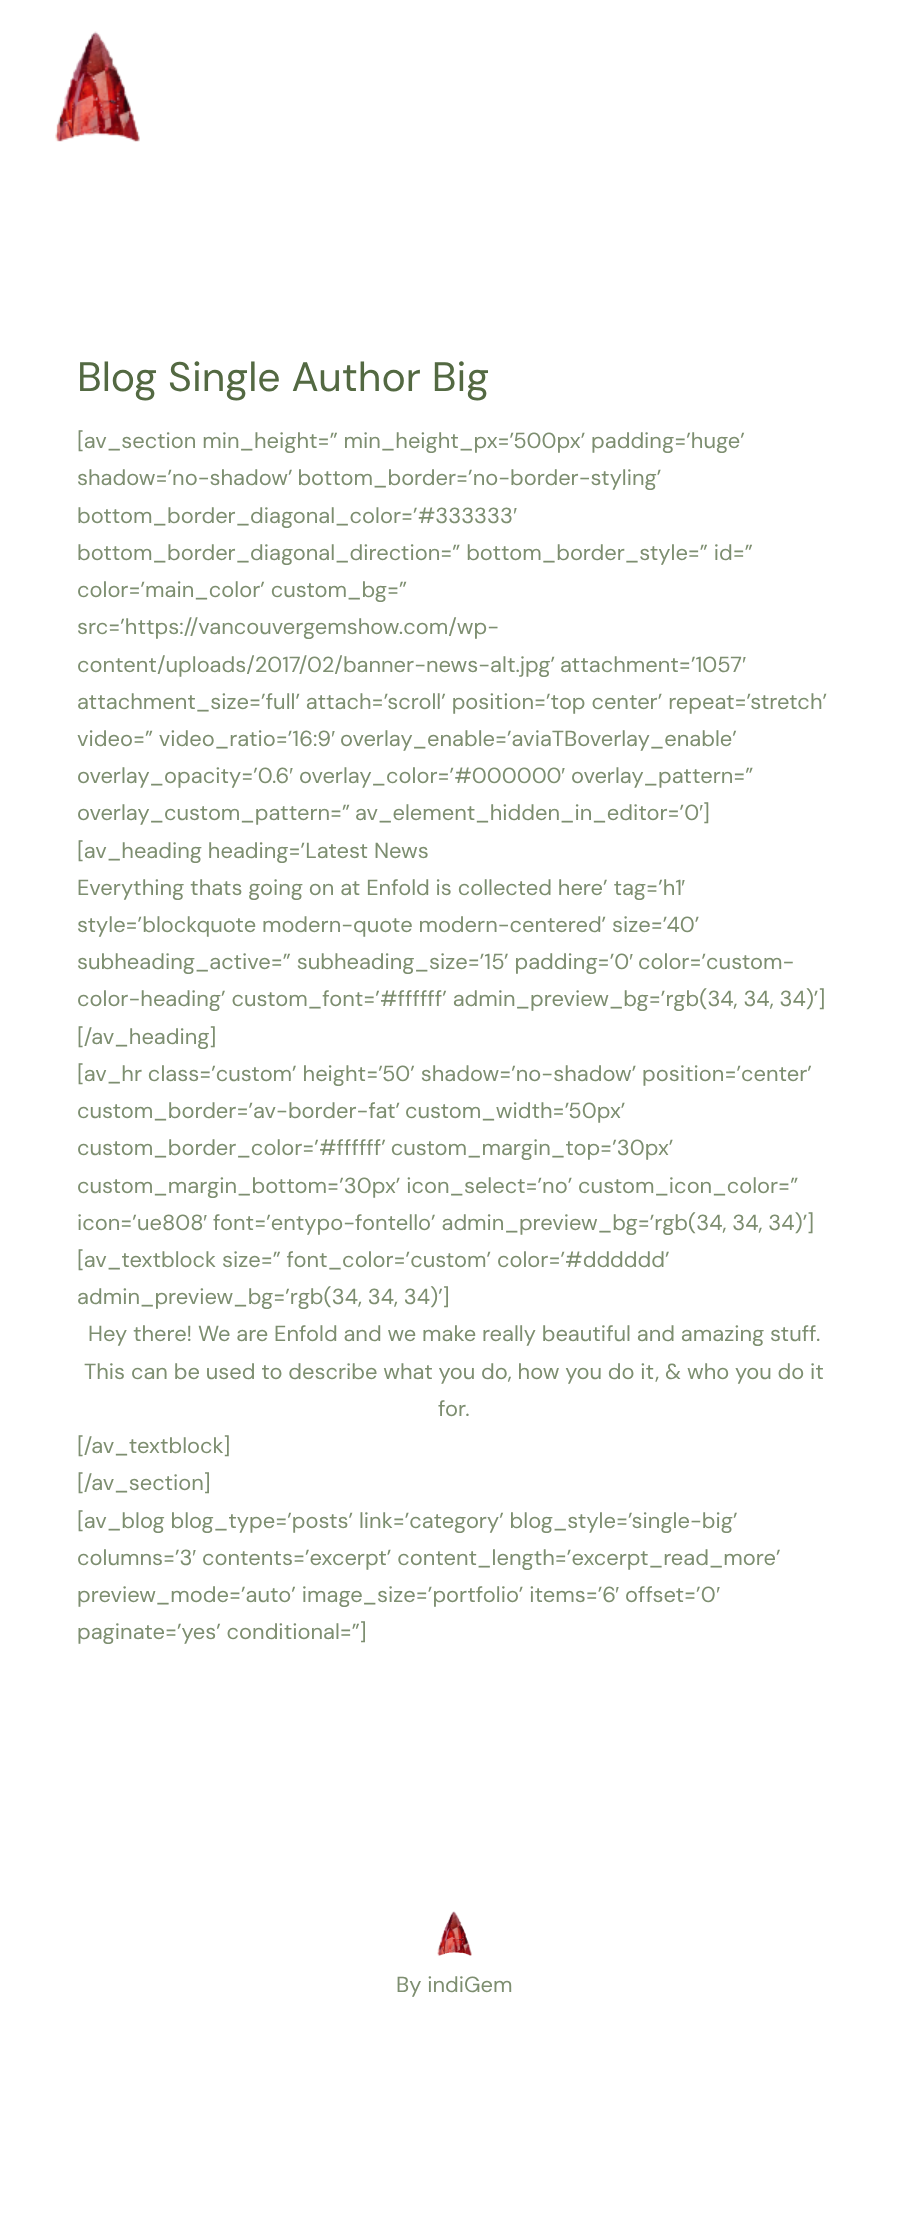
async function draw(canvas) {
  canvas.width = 907;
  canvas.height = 2218;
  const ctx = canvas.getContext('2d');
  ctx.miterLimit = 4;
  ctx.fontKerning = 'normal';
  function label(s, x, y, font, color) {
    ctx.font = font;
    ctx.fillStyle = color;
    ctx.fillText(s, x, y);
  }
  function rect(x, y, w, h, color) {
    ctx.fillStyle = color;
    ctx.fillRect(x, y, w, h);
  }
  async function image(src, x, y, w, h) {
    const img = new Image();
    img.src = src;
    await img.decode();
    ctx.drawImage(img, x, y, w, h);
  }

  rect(0, 0, 907, 2218, '#fff');
  await image('assets/img1.png', 55, 31, 85, 111);
  label('Blog Single Author Big', 77, 391, '41px DM Sans', '#536942');
  label('[av_section min_height=” min_height_px=’500px’ padding=’huge’', 77, 448, '21.9px DM Sans', '#7d8e70');
  ctx.wordSpacing = '-1px';
  label('shadow=’no-shadow’ bottom_border=’no-border-styling’', 77, 485, '21.9px DM Sans', '#7d8e70');
  ctx.wordSpacing = '0px';
  label('bottom_border_diagonal_color=’#333333', 77, 523, '21.9px DM Sans', '#7d8e70');
  label('′', 513, 523, '21.9px Liberation Sans', '#7d8e70');
  label('bottom_border_diagonal_direction=” bottom_border_style=” id=”', 77, 560, '21.9px DM Sans', '#7d8e70');
  label('color=’main_color’ custom_bg=”', 77, 597, '21.9px DM Sans', '#7d8e70');
  label('src=’https://vancouvergemshow.com/wp-', 77, 634, '21.9px DM Sans', '#7d8e70');
  ctx.wordSpacing = '-1px';
  label('content/uploads/2017/02/banner-news-alt.jpg’ attachment=’1057', 77, 672, '21.9px DM Sans', '#7d8e70');
  ctx.wordSpacing = '0px';
  label('′', 742, 672, '21.9px Liberation Sans', '#7d8e70');
  label('attachment_size=’full’ attach=’scroll’ position=’top center’ repeat=’stretch’', 77, 709, '21.9px DM Sans', '#7d8e70');
  label('video=” video_ratio=’16:9', 77, 746, '21.9px DM Sans', '#7d8e70');
  label('′', 331, 746, '21.9px Liberation Sans', '#7d8e70');
  label('overlay_enable=’aviaTBoverlay_enable’', 340, 746, '21.9px DM Sans', '#7d8e70');
  label('overlay_opacity=’0.6', 77, 783, '21.9px DM Sans', '#7d8e70');
  label('′', 289, 783, '21.9px Liberation Sans', '#7d8e70');
  label('overlay_color=’#000000', 299, 783, '21.9px DM Sans', '#7d8e70');
  label('′', 561, 783, '21.9px Liberation Sans', '#7d8e70');
  label('overlay_pattern=”', 571, 783, '21.9px DM Sans', '#7d8e70');
  ctx.wordSpacing = '-1px';
  label('overlay_custom_pattern=” av_element_hidden_in_editor=’0', 77, 820, '21.9px DM Sans', '#7d8e70');
  ctx.wordSpacing = '0px';
  label('′', 699, 820, '21.9px Liberation Sans', '#7d8e70');
  label(']', 703, 820, '21.9px DM Sans', '#7d8e70');
  label('[av_heading heading=’Latest News', 77, 858, '21.9px DM Sans', '#7d8e70');
  label('Everything thats going on at Enfold is collected here’ tag=’h1', 77, 895, '21.9px DM Sans', '#7d8e70');
  label('′', 681, 895, '21.9px Liberation Sans', '#7d8e70');
  label('style=’blockquote modern-quote modern-centered’ size=’40’', 77, 932, '21.9px DM Sans', '#7d8e70');
  label('subheading_active=” subheading_size=’15’ padding=’0', 77, 969, '21.9px DM Sans', '#7d8e70');
  label('′', 629, 969, '21.9px Liberation Sans', '#7d8e70');
  label('color=’custom-', 638, 969, '21.9px DM Sans', '#7d8e70');
  label('color-heading’ custom_font=’#ffffff’ admin_preview_bg=’rgb(34, 34, 34)’]', 77, 1006, '21.9px DM Sans', '#7d8e70');
  label('[/av_heading]', 77, 1044, '21.9px DM Sans', '#7d8e70');
  label('[av_hr class=’custom’ height=’50’ shadow=’no-shadow’ position=’center’', 77, 1081, '21.9px DM Sans', '#7d8e70');
  ctx.wordSpacing = '-1px';
  label('custom_border=’av-border-fat’ custom_width=’50px’', 77, 1118, '21.9px DM Sans', '#7d8e70');
  label('custom_border_color=’#ffffff’ custom_margin_top=’30px’', 77, 1155, '21.9px DM Sans', '#7d8e70');
  ctx.wordSpacing = '0px';
  label('custom_margin_bottom=’30px’ icon_select=’no’ custom_icon_color=”', 77, 1193, '21.9px DM Sans', '#7d8e70');
  label('icon=’ue808', 77, 1230, '21.9px DM Sans', '#7d8e70');
  label('′', 203, 1230, '21.9px Liberation Sans', '#7d8e70');
  label('font=’entypo-fontello’ admin_preview_bg=’rgb(34, 34, 34)’]', 213, 1230, '21.9px DM Sans', '#7d8e70');
  label('[av_textblock size=” font_color=’custom’ color=’#dddddd’', 77, 1267, '21.9px DM Sans', '#7d8e70');
  label('admin_preview_bg=’rgb(34, 34, 34)’]', 77, 1304, '21.9px DM Sans', '#7d8e70');
  label('Hey there! We are Enfold and we make really beautiful and amazing stuff.', 88, 1341, '21.9px DM Sans', '#7d8e70');
  label('This can be used to describe what you do, how you do it, & who you do it', 84, 1379, '21.9px DM Sans', '#7d8e70');
  label('for.', 438, 1416, '21.9px DM Sans', '#7d8e70');
  label('[/av_textblock]', 77, 1453, '21.9px DM Sans', '#7d8e70');
  label('[/av_section]', 77, 1490, '21.9px DM Sans', '#7d8e70');
  label('[av_blog blog_type=’posts’ link=’category’ blog_style=’single-big’', 77, 1528, '21.9px DM Sans', '#7d8e70');
  label('columns=’3', 77, 1565, '21.9px DM Sans', '#7d8e70');
  label('′', 192, 1565, '21.9px Liberation Sans', '#7d8e70');
  label('contents=’excerpt’ content_length=’excerpt_read_more’', 202, 1565, '21.9px DM Sans', '#7d8e70');
  label('preview_mode=’auto’ image_size=’portfolio’ items=’6', 77, 1602, '21.9px DM Sans', '#7d8e70');
  label('′', 615, 1602, '21.9px Liberation Sans', '#7d8e70');
  label('offset=’0', 625, 1602, '21.9px DM Sans', '#7d8e70');
  label('′', 716, 1602, '21.9px Liberation Sans', '#7d8e70');
  label('paginate=’yes’ conditional=”]', 77, 1639, '21.9px DM Sans', '#7d8e70');
  await image('assets/img2.png', 437, 1911, 35, 45);
  label('By indiGem', 396, 1992, '21.9px DM Sans', '#7d8e70');
}

draw(document.querySelector('canvas'));
